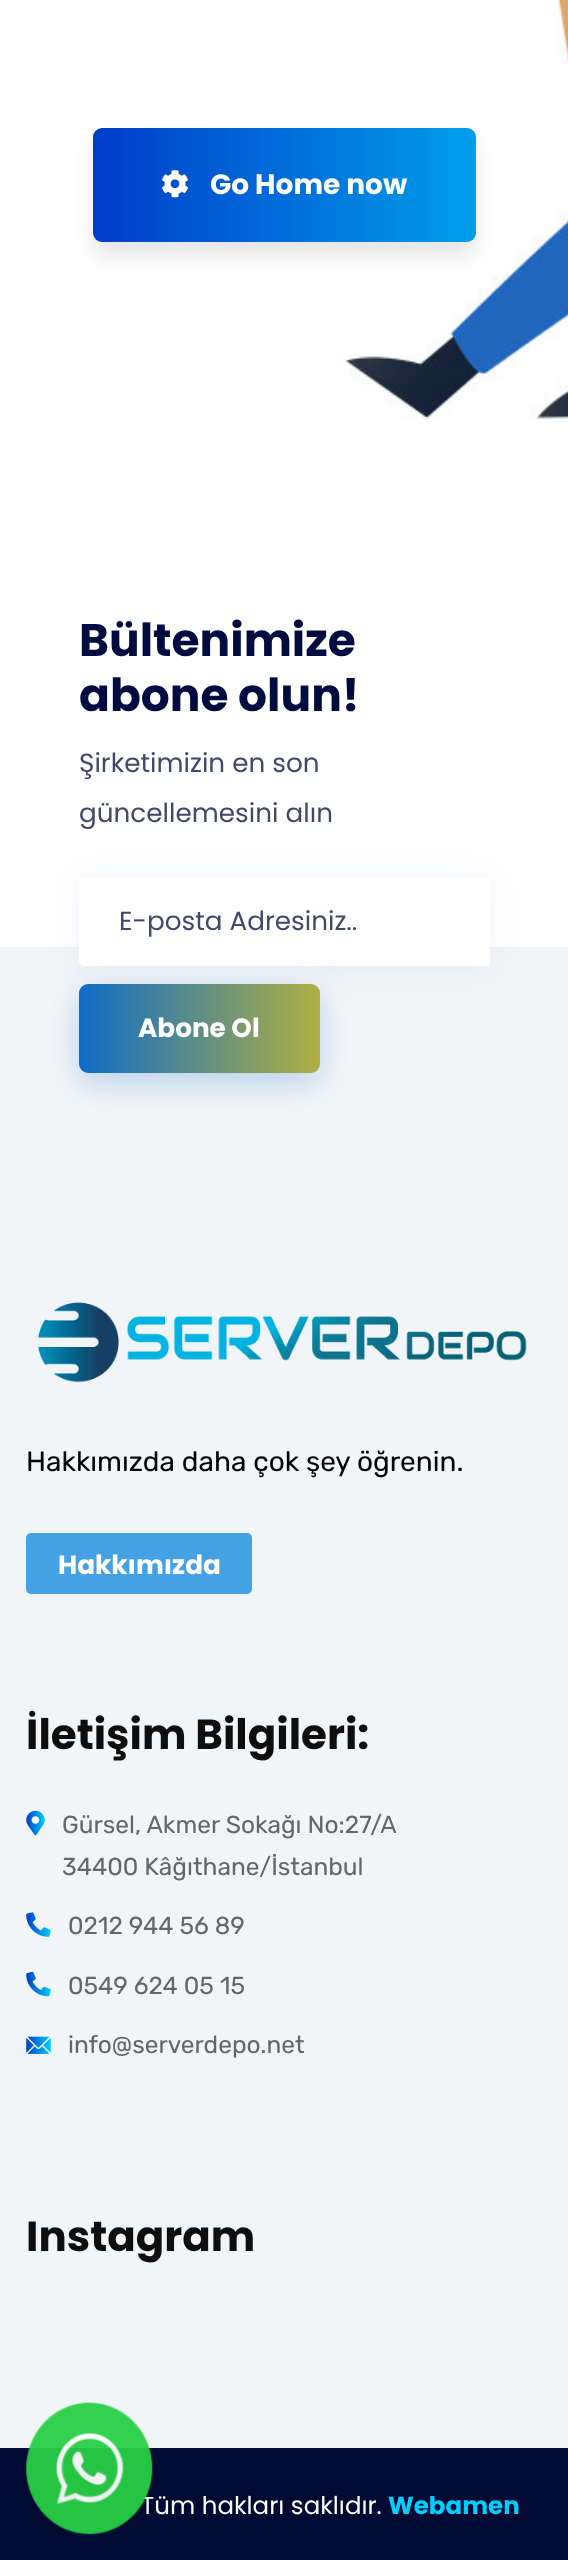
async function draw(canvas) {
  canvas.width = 568;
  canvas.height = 2560;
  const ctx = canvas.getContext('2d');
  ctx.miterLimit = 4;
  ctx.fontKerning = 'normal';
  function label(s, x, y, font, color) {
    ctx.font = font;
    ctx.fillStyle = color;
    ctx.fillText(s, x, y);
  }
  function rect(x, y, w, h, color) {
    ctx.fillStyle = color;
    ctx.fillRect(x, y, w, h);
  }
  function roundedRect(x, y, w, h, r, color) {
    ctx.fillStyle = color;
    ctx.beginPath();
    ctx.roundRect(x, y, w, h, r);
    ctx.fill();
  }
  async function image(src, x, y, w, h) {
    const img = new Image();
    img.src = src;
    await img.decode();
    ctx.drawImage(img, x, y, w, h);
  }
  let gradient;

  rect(0, 0, 568, 2560, '#fff');
  await image('assets/img1.png', 337, 0, 231, 419);
  ctx.fillStyle = '#0c0c0c1a';
  ctx.filter = 'blur(9px)';
  ctx.beginPath();
  ctx.roundRect(93, 142, 383, 114, 9);
  ctx.fill();
  ctx.filter = 'none';
  gradient = ctx.createLinearGradient(93, 185, 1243, 185);
  gradient.addColorStop(0, '#003cc8');
  gradient.addColorStop(0.5, '#00d0fc');
  gradient.addColorStop(1, '#003cc8');
  ctx.fillStyle = gradient;
  ctx.beginPath();
  ctx.roundRect(93, 128, 383, 114, 9);
  ctx.fill();
  await image('assets/img2.png', 162, 170, 26, 28);
  label('Go Home now', 210, 194, 'bold 28px Poppins', '#fff');
  label('Bültenimize', 79, 656, 'bold 45.5px Poppins', '#000c3f');
  label('abone olun!', 79, 711, 'bold 45.5px Poppins', '#000c3f');
  label('Şirketimizin en son', 79, 772, '26.25px Poppins', '#41496b');
  label('güncellemesini alın', 79, 822, '26.25px Poppins', '#41496b');
  rect(0, 947, 568, 1501, '#f2f5f7');
  ctx.fillStyle = '#05298c0f';
  ctx.filter = 'blur(18.5px)';
  ctx.beginPath();
  ctx.roundRect(79, 877, 411, 89, 5);
  ctx.fill();
  ctx.filter = 'none';
  ctx.fillStyle = '#fff';
  ctx.beginPath();
  ctx.roundRect(80, 878, 409, 87, 4);
  ctx.fill();
  ctx.strokeStyle = '#fff';
  ctx.lineWidth = 2;
  ctx.stroke();
  label('E-posta Adresiniz..', 119, 930, '26.25px Poppins', '#41496b');
  ctx.fillStyle = '#106cc740';
  ctx.filter = 'blur(16px)';
  ctx.beginPath();
  ctx.roundRect(79, 994, 241, 89, 9);
  ctx.fill();
  ctx.filter = 'none';
  gradient = ctx.createLinearGradient(79, 1028, 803, 1028);
  gradient.addColorStop(0, '#106cc7');
  gradient.addColorStop(0.5, '#ffd200');
  gradient.addColorStop(1, '#106cc7');
  ctx.fillStyle = gradient;
  ctx.beginPath();
  ctx.roundRect(79, 984, 241, 89, 9);
  ctx.fill();
  label('Abone Ol', 138, 1037, 'bold 26.25px Poppins', '#fff');
  await image('assets/img3.png', 38, 1302, 489, 81);
  label('Hakkımızda daha çok şey öğrenin.', 26, 1471, '28px Rubik', '#000');
  roundedRect(26, 1533, 226, 61, 5, '#44a1e4');
  label('Hakkımızda', 58, 1574, 'bold 26.25px Poppins', '#fff');
  label('İletişim Bilgileri:', 26, 1749, 'bold 42px Poppins', '#0e0e0e');
  await image('assets/img4.png', 26, 1810, 19, 26);
  label('Gürsel, Akmer Sokağı No:27/A', 62, 1833, '24.5px Rubik', '#666');
  label('34400 Kâğıthane/İstanbul', 62, 1875, '24.5px Rubik', '#666');
  await image('assets/img5.png', 26, 1912, 25, 25);
  label('0212 944 56 89', 68, 1934, '24.5px Rubik', '#666');
  await image('assets/img6.png', 26, 1971, 25, 26);
  label('0549 624 05 15', 68, 1994, '24.5px Rubik', '#666');
  await image('assets/img7.png', 26, 2036, 25, 18);
  label('info@serverdepo.net', 68, 2053, '24.5px Rubik', '#666');
  label('Instagram', 26, 2251, 'bold 42px Poppins', '#0e0e0e');
  rect(0, 2448, 568, 112, '#010a32');
  label('Tüm hakları saklıdır.', 141, 2514, '24.5px Poppins', '#fff');
  label('Webamen', 388, 2514, 'bold 24.5px Poppins', '#00cefb');
  await image('assets/img8.png', 26, 2402, 127, 133);
}

draw(document.querySelector('canvas'));
